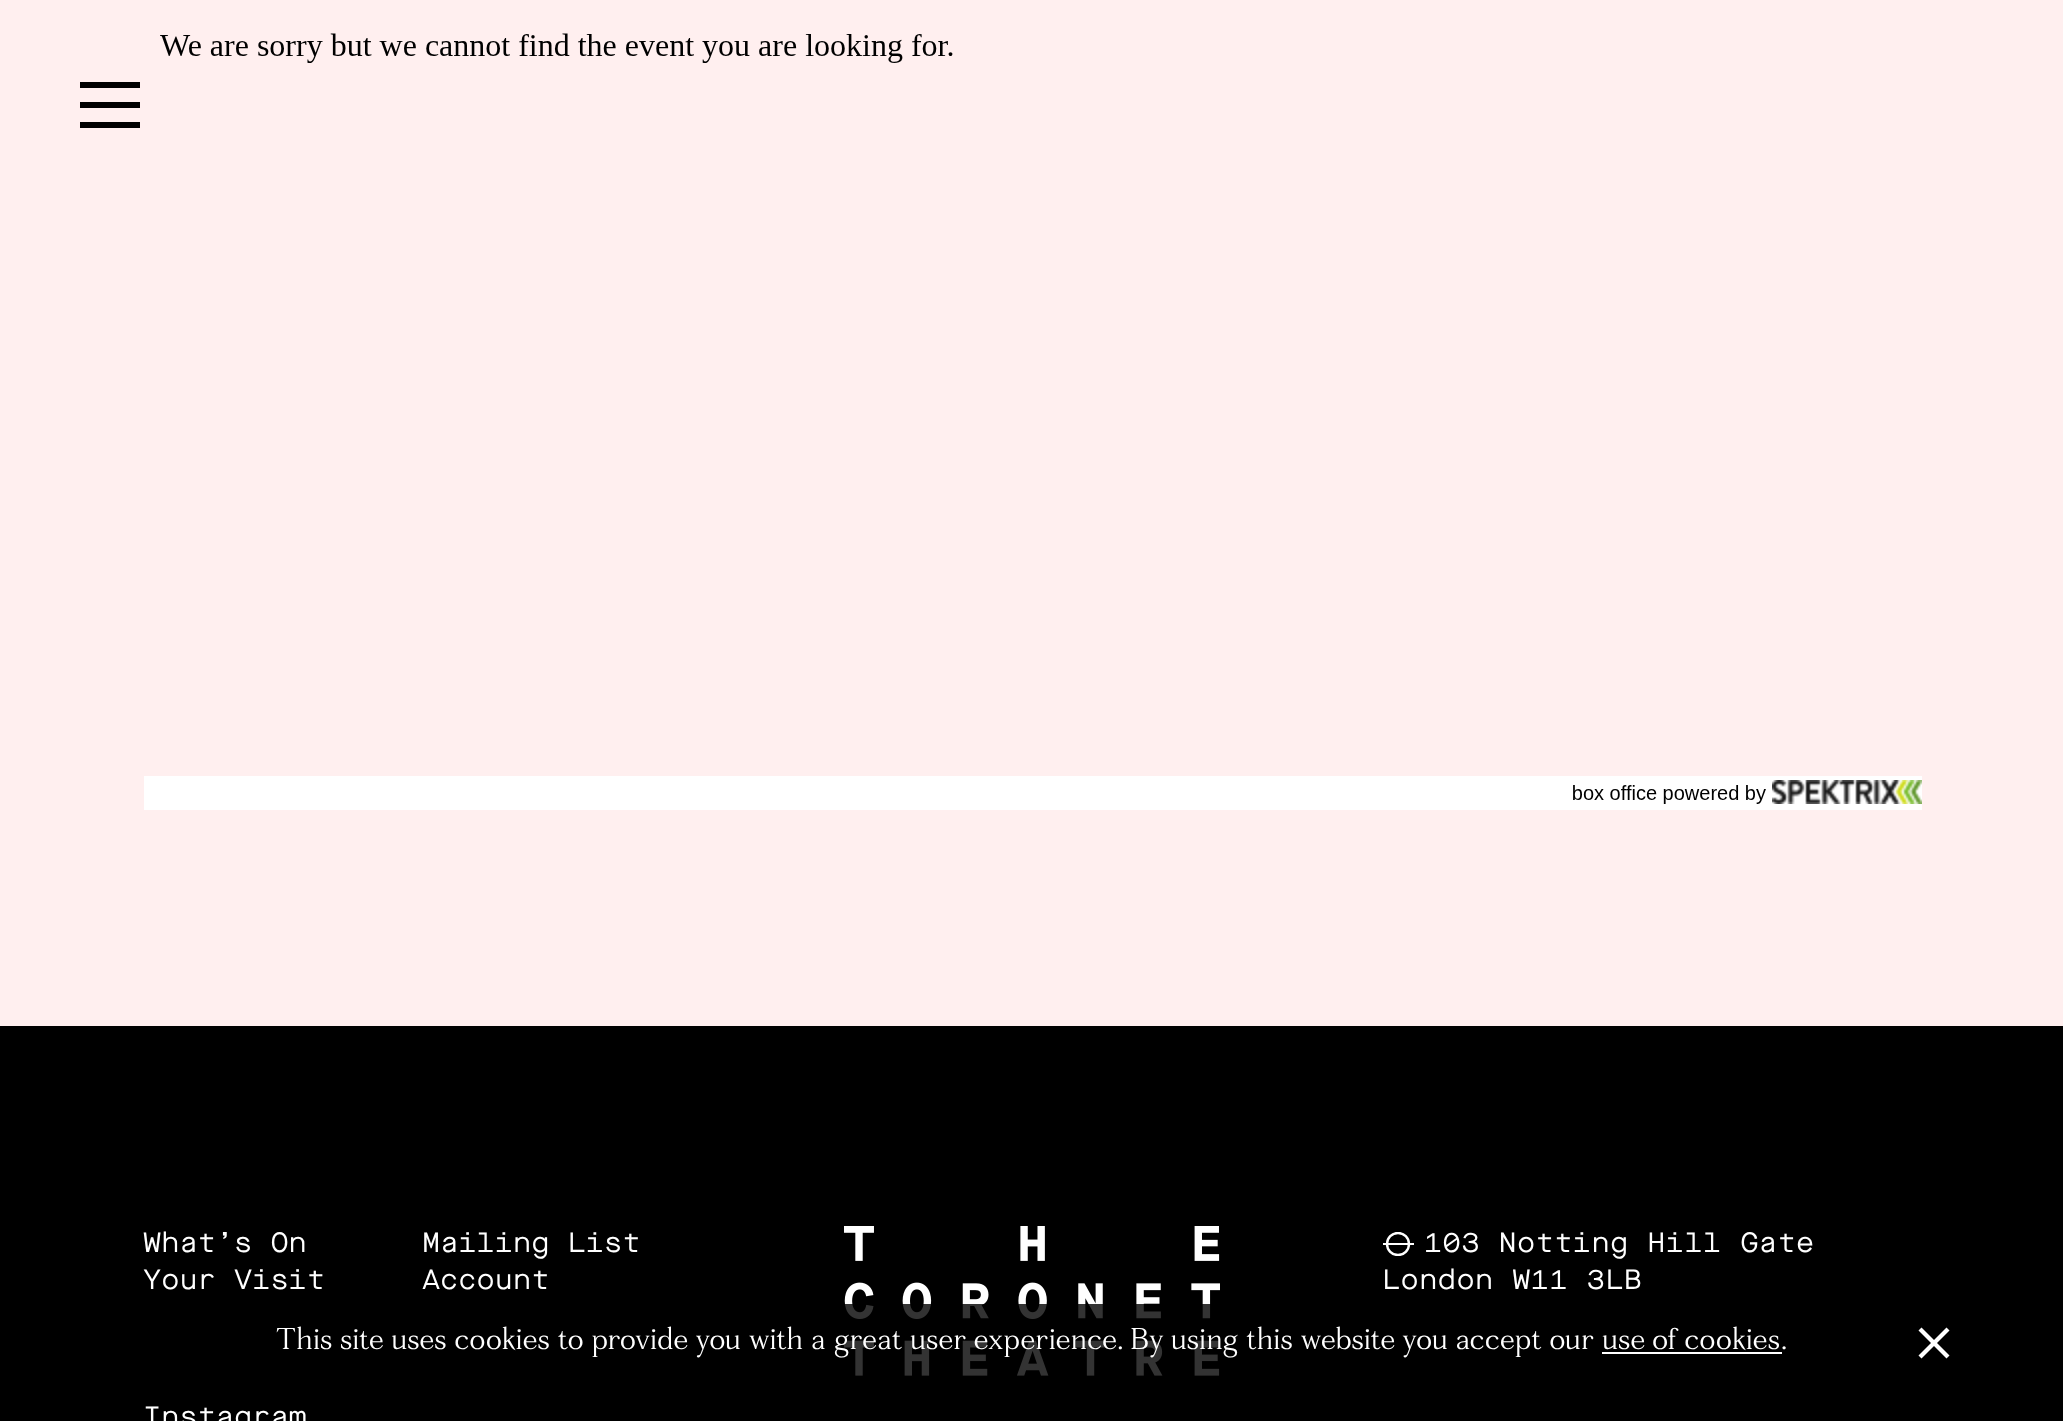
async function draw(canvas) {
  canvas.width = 2063;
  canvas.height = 1421;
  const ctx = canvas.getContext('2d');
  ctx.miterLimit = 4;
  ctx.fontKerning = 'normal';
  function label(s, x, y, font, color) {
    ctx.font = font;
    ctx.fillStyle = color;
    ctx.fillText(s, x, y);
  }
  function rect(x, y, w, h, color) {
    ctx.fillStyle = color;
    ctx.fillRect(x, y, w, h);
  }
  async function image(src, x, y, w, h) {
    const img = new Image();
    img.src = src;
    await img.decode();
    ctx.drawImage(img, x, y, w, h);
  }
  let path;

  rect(0, 0, 2063, 1421, '#ffefef');
  rect(80, 82, 60, 6, '#000');
  rect(80, 102, 60, 6, '#000');
  rect(80, 122, 60, 6, '#000');
  await image('assets/img1.png', 144, 33, 1778, 777);
  rect(0, 1026, 2063, 395, '#000');
  label('What’s On', 143, 1252, '28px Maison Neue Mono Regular', '#fff');
  label('Your Visit', 143, 1289, '28px Maison Neue Mono Regular', '#fff');
  label('Instagram', 143, 1426, '28px Maison Neue Mono Regular', '#fff');
  label('Mailing List', 422, 1252, '28px Maison Neue Mono Regular', '#fff');
  label('Account', 422, 1289, '28px Maison Neue Mono Regular', '#fff');
  await image('assets/img2.png', 844, 1226, 376, 150);
  ctx.save();
  ctx.beginPath();
  ctx.rect(1382, 1232, 32, 24);
  ctx.clip();
  ctx.beginPath();
  ctx.arc(1398, 1244, 11, 0, 2 * Math.PI);
  ctx.strokeStyle = '#fff';
  ctx.lineWidth = 2.4;
  ctx.stroke();
  ctx.restore();
  rect(1383, 1243, 31, 2, '#fff');
  ctx.letterSpacing = '0.4px';
  label('103 Notting Hill Gate', 1424, 1252, '28px Maison Neue Mono Regular', '#fff');
  label('London W11 3LB', 1382, 1289, '28px Maison Neue Mono Regular', '#fff');
  rect(844, 1304, 376, 72, '#000000cc');
  label('This site uses cookies to provide you with a great user experience. By using this website you accept our', 276, 1349, '300 30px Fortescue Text', '#fff');
  label('use of cookies', 1602, 1349, '300 30px Fortescue Text', '#fff');
  rect(1602, 1352, 180, 2, '#fff');
  label('.', 1781, 1349, '300 30px Fortescue Text', '#fff');
  path = new Path2D('M1918.5 1355.5L1946.5 1327.5L1949.5 1330.5L1921.5 1358.5Z');
  ctx.fill(path);
  path = new Path2D('M1921.5 1327.5L1949.5 1355.5L1946.5 1358.5L1918.5 1330.5Z');
  ctx.fill(path);
}

draw(document.querySelector('canvas'));
